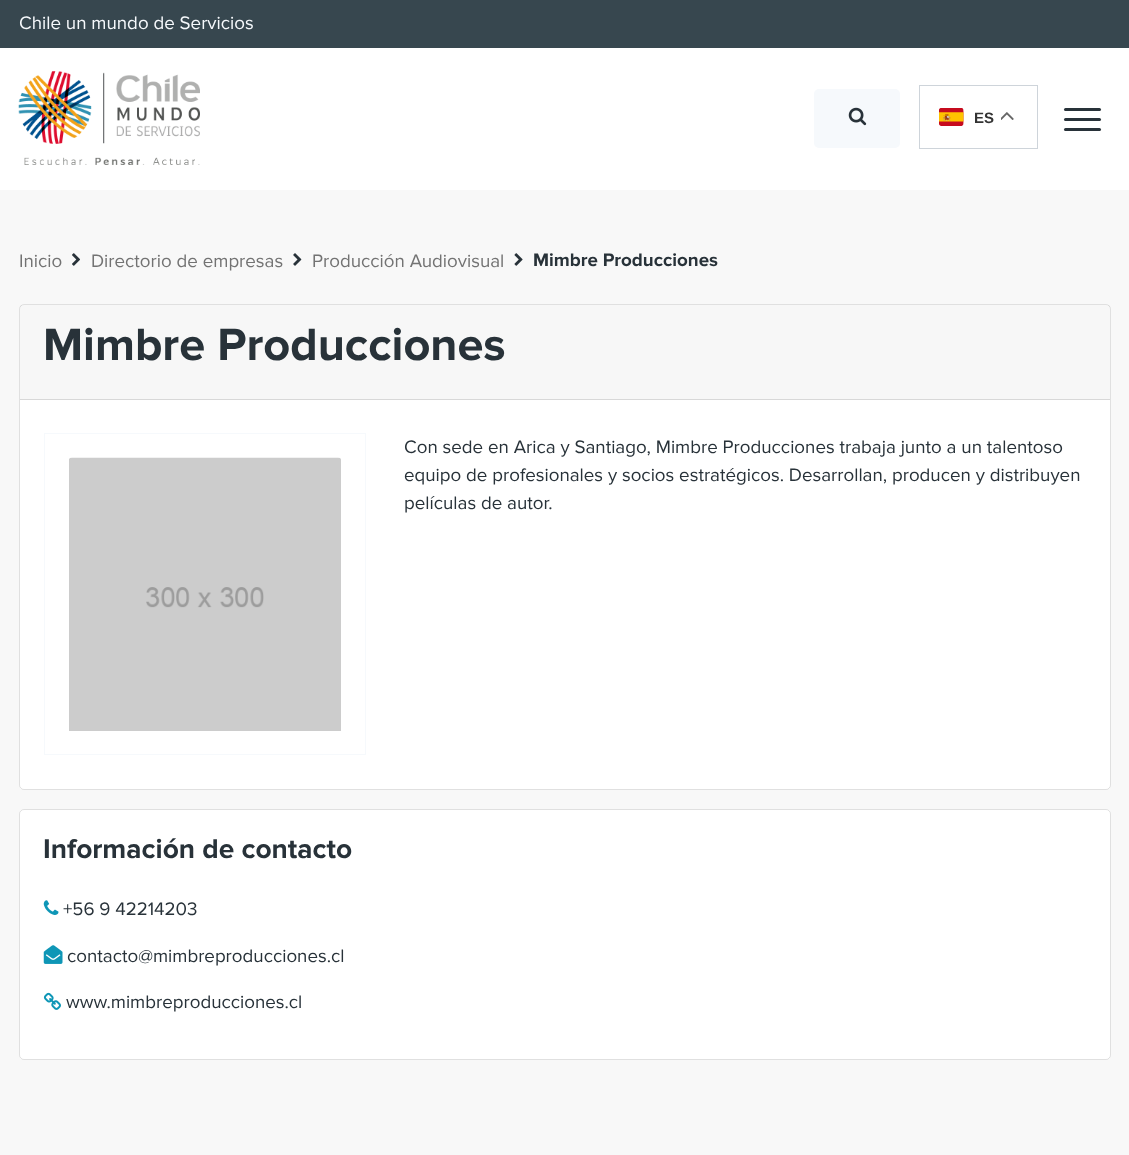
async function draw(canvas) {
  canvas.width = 1129;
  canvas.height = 1155;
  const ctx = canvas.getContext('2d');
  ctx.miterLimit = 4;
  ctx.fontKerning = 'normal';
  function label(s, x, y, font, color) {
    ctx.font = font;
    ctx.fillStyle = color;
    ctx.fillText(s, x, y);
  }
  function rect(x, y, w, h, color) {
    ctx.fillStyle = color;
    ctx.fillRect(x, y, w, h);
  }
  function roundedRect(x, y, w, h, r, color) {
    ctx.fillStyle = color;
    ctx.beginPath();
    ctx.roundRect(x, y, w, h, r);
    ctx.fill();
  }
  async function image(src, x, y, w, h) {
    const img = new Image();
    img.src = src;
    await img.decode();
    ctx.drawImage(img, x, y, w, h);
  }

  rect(0, 0, 1129, 1155, '#fff');
  rect(0, 0, 1129, 48, '#37474f');
  label('Chile un mundo de Servicios', 19, 29, '18.75px Proxima Nova', '#f6f9fc');
  await image('assets/img1.png', 18, 71, 182, 94);
  roundedRect(814, 89, 86, 59, 5, '#f6f9fc');
  await image('assets/img2.png', 848, 107, 19, 19);
  ctx.strokeStyle = '#ced4da';
  ctx.strokeRect(919.5, 85.5, 118, 63);
  await image('assets/img3.png', 939, 108, 25, 18);
  label('ES', 974, 123, 'bold 15px Liberation Sans', '#333');
  await image('assets/img4.png', 1001, 112, 13, 8);
  roundedRect(1064, 118, 37, 3, 1.5, '#283239');
  roundedRect(1064, 108, 37, 3, 1.5, '#283239');
  roundedRect(1064, 128, 37, 3, 1.5, '#283239');
  rect(0, 190, 1129, 965, '#f8f8f8');
  label('Inicio', 19, 267, '18.75px Proxima Nova', '#737373');
  await image('assets/img5.png', 72, 253, 8, 13);
  label('Directorio de empresas', 91, 267, '18.75px Proxima Nova', '#737373');
  await image('assets/img6.png', 293, 253, 9, 13);
  label('Producción Audiovisual', 312, 267, '18.75px Proxima Nova', '#737373');
  await image('assets/img7.png', 514, 253, 9, 13);
  label('Mimbre Producciones', 533, 266, 'bold 18.75px Proxima Nova', '#283239');
  roundedRect(19, 304, 1092, 486, 5, '#fff');
  ctx.beginPath();
  ctx.roundRect(19.5, 304.5, 1091, 485, 4.5);
  ctx.strokeStyle = '#0000001f';
  ctx.stroke();
  rect(20, 305, 1090, 94, '#00000008');
  rect(20, 399, 1090, 1, '#d8d8d8');
  label('Mimbre Producciones', 43, 360, 'bold 46.9px Proxima Nova', '#283239');
  ctx.strokeStyle = '#f6f9fc';
  ctx.strokeRect(44.5, 433.5, 321, 321);
  await image('assets/img8.png', 69, 457, 272, 274);
  label('Con sede en Arica y Santiago, Mimbre Producciones trabaja junto a un talentoso', 404, 453, '18.75px Proxima Nova', '#283239');
  label('equipo de profesionales y socios estratégicos. Desarrollan, producen y distribuyen', 404, 481, '18.75px Proxima Nova', '#283239');
  label('películas de autor.', 404, 509, '18.75px Proxima Nova', '#283239');
  roundedRect(19, 809, 1092, 251, 5, '#fff');
  ctx.beginPath();
  ctx.roundRect(19.5, 809.5, 1091, 250, 4.5);
  ctx.strokeStyle = '#0000001f';
  ctx.stroke();
  label('Información de contacto', 43, 858, 'bold 28.1px Proxima Nova', '#283239');
  await image('assets/img9.png', 43, 900, 16, 15);
  label('+56 9 42214203', 63, 915, '18.75px Proxima Nova', '#283239');
  await image('assets/img10.png', 43, 945, 20, 19);
  label('contacto@mimbreproducciones.cl', 67, 962, '18.75px Proxima Nova', '#283239');
  await image('assets/img11.png', 43, 992, 18, 18);
  label('www.mimbreproducciones.cl', 66, 1008, '18.75px Proxima Nova', '#283239');
}

draw(document.querySelector('canvas'));
